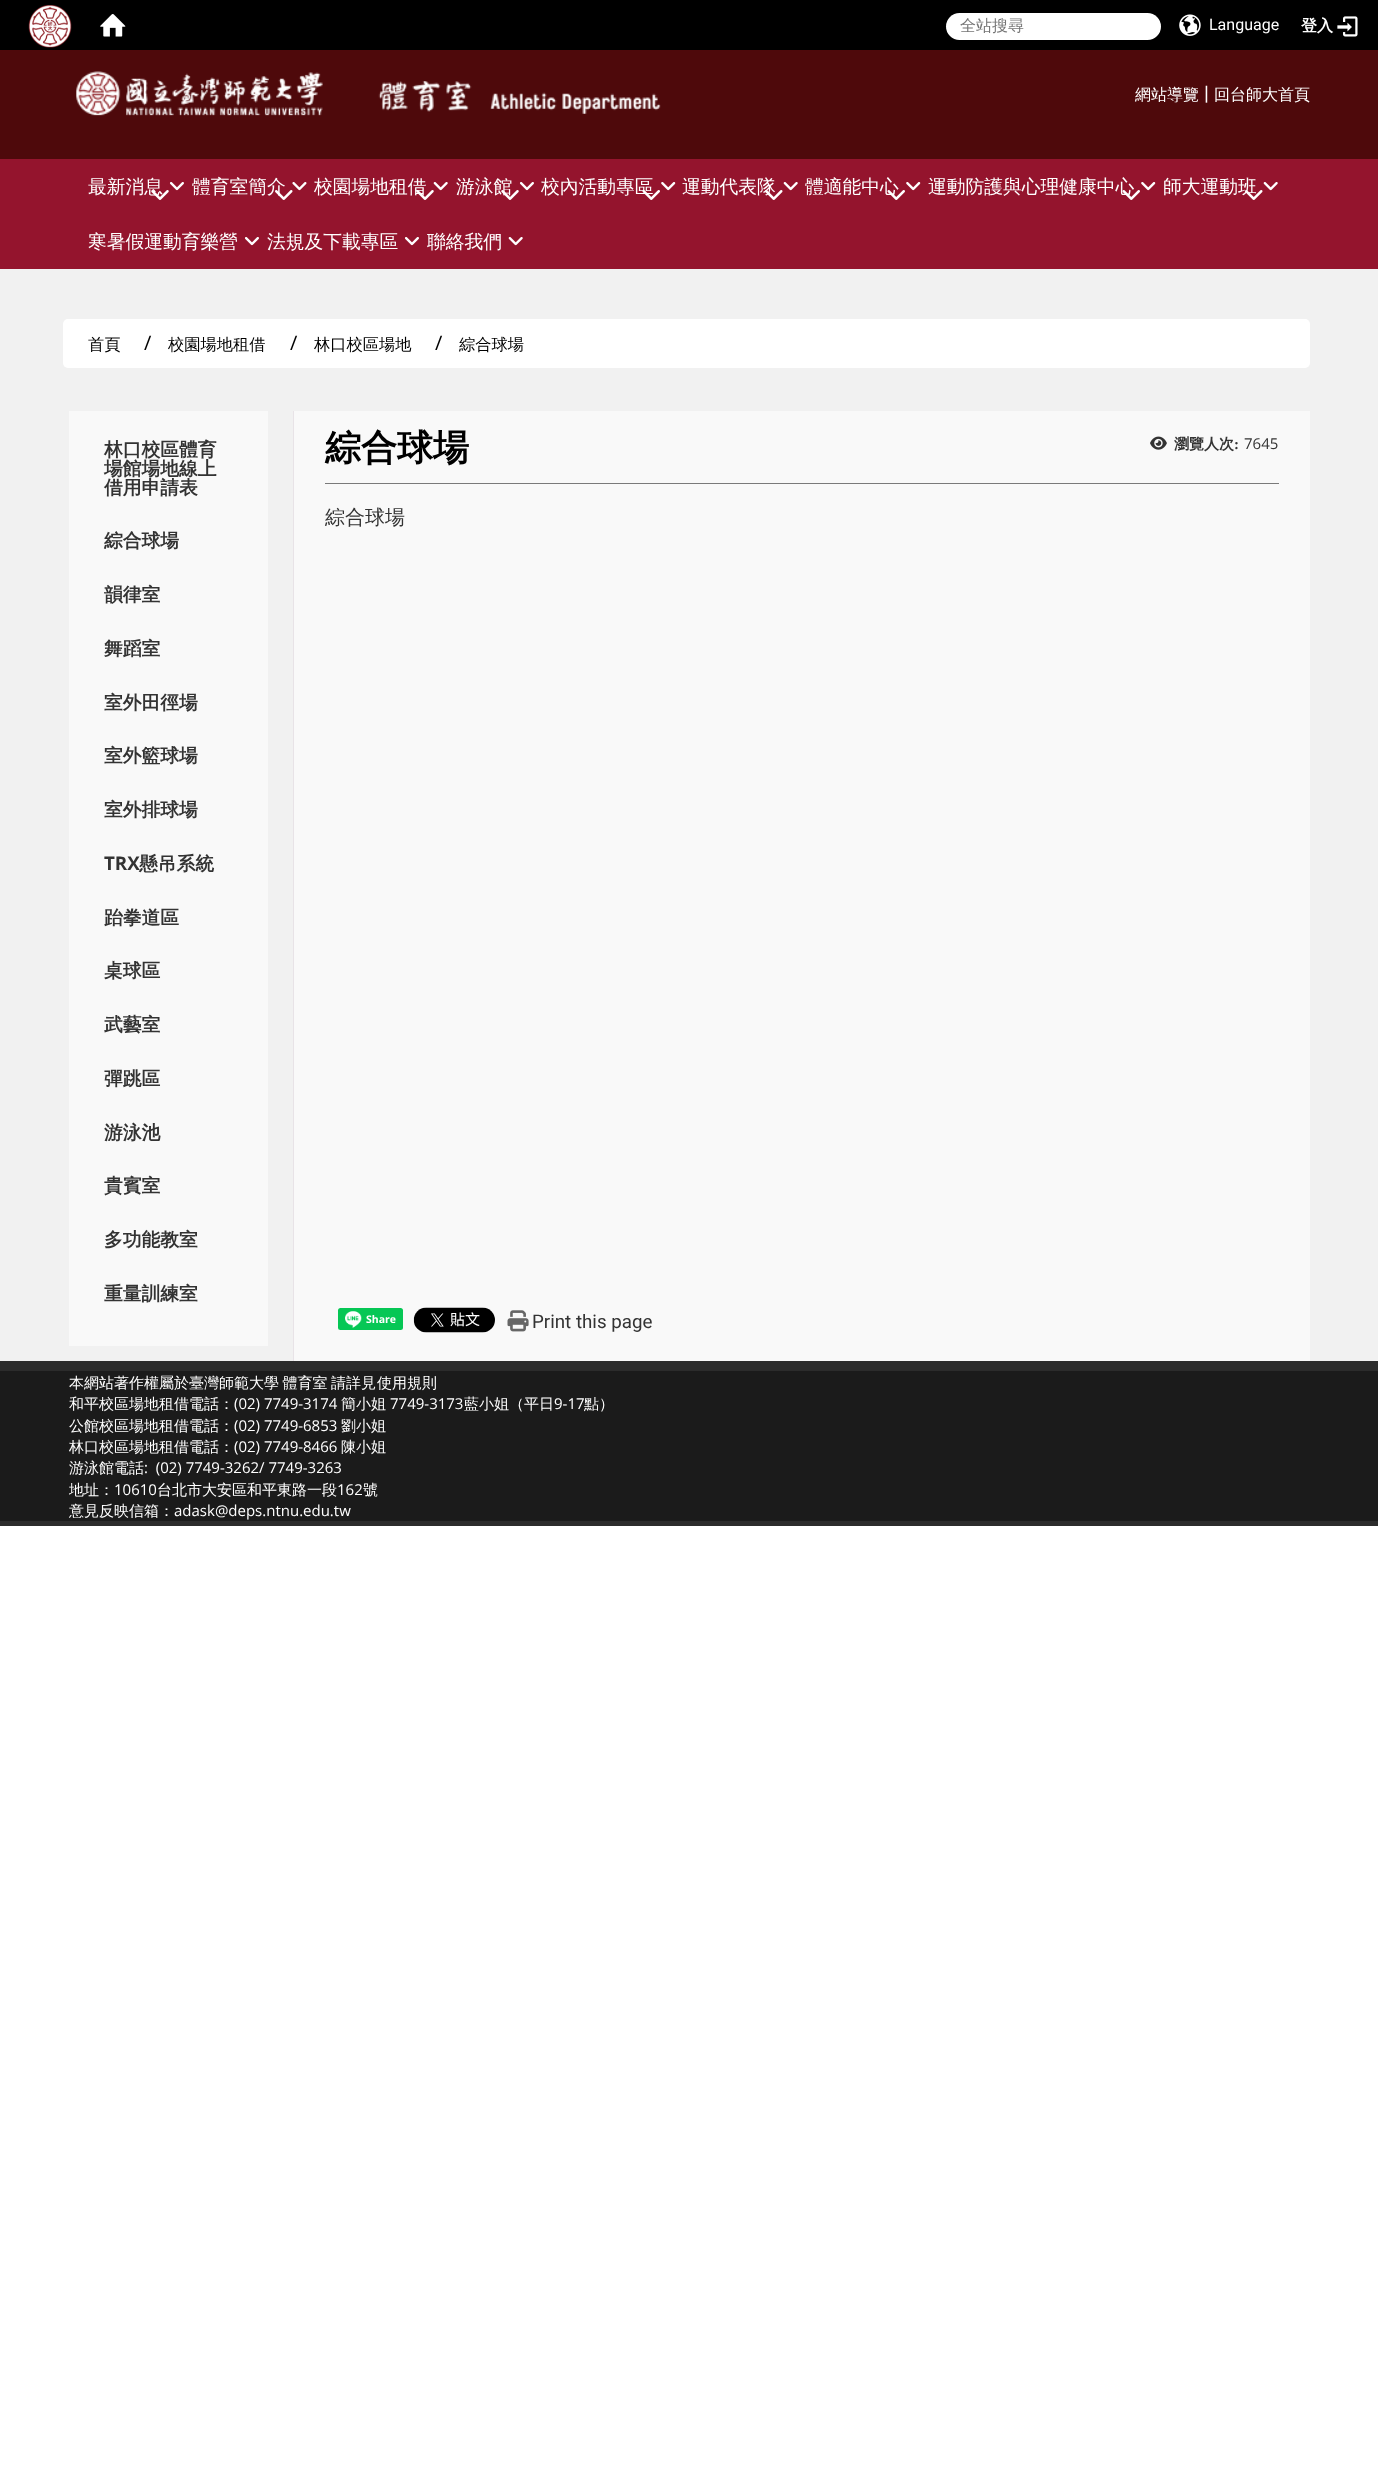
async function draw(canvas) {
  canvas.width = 1378;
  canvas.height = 2480;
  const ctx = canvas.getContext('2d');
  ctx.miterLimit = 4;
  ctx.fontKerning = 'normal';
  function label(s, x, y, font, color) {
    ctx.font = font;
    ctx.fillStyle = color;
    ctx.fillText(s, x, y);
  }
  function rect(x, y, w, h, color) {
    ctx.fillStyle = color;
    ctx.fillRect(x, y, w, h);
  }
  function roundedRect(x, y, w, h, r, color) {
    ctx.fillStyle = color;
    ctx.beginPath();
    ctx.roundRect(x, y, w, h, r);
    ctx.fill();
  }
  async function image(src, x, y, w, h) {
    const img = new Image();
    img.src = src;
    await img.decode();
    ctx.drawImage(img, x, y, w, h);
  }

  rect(0, 0, 1378, 2480, '#fff');
  rect(0, 0, 1378, 50, '#000');
  await image('assets/img1.png', 28, 5, 44, 43);
  await image('assets/img2.png', 100, 14, 26, 23);
  roundedRect(946, 13, 215, 27, 13.5, '#fff');
  label('全站搜尋', 960, 31, '500 16px WenQuanYi Zen Hei', '#757575');
  await image('assets/img3.png', 1179, 14, 22, 22);
  label('Language', 1209, 30, '16px Roboto', '#fff');
  label('登入', 1301, 31, 'bold 16px WenQuanYi Zen Hei', '#fff');
  await image('assets/img4.png', 1337, 16, 21, 21);
  rect(0, 50, 1378, 109, '#4e090b');
  await image('assets/img5.png', 76, 71, 247, 45);
  await image('assets/img6.png', 378, 81, 283, 33);
  label('網站導覽', 1135, 100, '500 16px WenQuanYi Zen Hei', '#fff');
  label('|', 1204, 100, '20px Roboto', '#fff');
  label('回台師大首頁', 1214, 100, '500 16px WenQuanYi Zen Hei', '#fff');
  rect(0, 269, 1378, 1092, '#f1f1f1');
  rect(0, 159, 1378, 110, '#94142d');
  label('最新消息', 88, 193, '500 18.75px WenQuanYi Zen Hei', '#fff');
  await image('assets/img7.png', 169, 182, 15, 9);
  await image('assets/img8.png', 151, 190, 18, 10);
  label('體育室簡介', 192, 193, '500 18.75px WenQuanYi Zen Hei', '#fff');
  await image('assets/img9.png', 292, 182, 15, 9);
  await image('assets/img10.png', 275, 190, 18, 10);
  label('校園場地租借', 314, 193, '500 18.75px WenQuanYi Zen Hei', '#fff');
  await image('assets/img11.png', 433, 182, 15, 9);
  await image('assets/img12.png', 416, 190, 18, 10);
  label('游泳館', 456, 193, '500 18.75px WenQuanYi Zen Hei', '#fff');
  await image('assets/img7.png', 519, 182, 15, 9);
  await image('assets/img13.png', 501, 190, 18, 10);
  label('校內活動專區', 541, 193, '500 18.75px WenQuanYi Zen Hei', '#fff');
  await image('assets/img14.png', 661, 182, 15, 9);
  await image('assets/img15.png', 642, 190, 18, 10);
  label('運動代表隊', 682, 193, '500 18.75px WenQuanYi Zen Hei', '#fff');
  await image('assets/img11.png', 783, 182, 15, 9);
  await image('assets/img16.png', 765, 190, 18, 10);
  label('體適能中心', 805, 193, '500 18.75px WenQuanYi Zen Hei', '#fff');
  await image('assets/img14.png', 906, 182, 15, 9);
  await image('assets/img17.png', 887, 190, 18, 10);
  label('運動防護與心理健康中心', 928, 193, '500 18.75px WenQuanYi Zen Hei', '#fff');
  await image('assets/img14.png', 1141, 182, 15, 9);
  await image('assets/img18.png', 1122, 190, 18, 10);
  label('師大運動班', 1163, 193, '500 18.75px WenQuanYi Zen Hei', '#fff');
  await image('assets/img11.png', 1263, 182, 15, 9);
  await image('assets/img19.png', 1245, 190, 18, 10);
  label('寒暑假運動育樂營', 88, 248, '500 18.75px WenQuanYi Zen Hei', '#fff');
  await image('assets/img7.png', 244, 237, 15, 9);
  label('法規及下載專區', 267, 248, '500 18.75px WenQuanYi Zen Hei', '#fff');
  await image('assets/img7.png', 404, 237, 15, 9);
  label('聯絡我們', 427, 248, '500 18.75px WenQuanYi Zen Hei', '#fff');
  await image('assets/img11.png', 508, 237, 15, 9);
  roundedRect(63, 319, 1247, 49, 5, '#fff');
  label('首頁', 88, 350, '500 16.25px WenQuanYi Zen Hei', '#000');
  label('/', 144, 350, '20px Open Sans', '#000');
  label('校園場地租借', 168, 350, '500 16.25px WenQuanYi Zen Hei', '#000');
  label('/', 290, 350, '20px Open Sans', '#000');
  label('林口校區場地', 314, 350, '500 16.25px WenQuanYi Zen Hei', '#000');
  label('/', 435, 350, '20px Open Sans', '#000');
  label('綜合球場', 459, 350, '500 16.25px WenQuanYi Zen Hei', '#000');
  rect(69, 411, 199, 935, '#f9f9f9');
  label('林口校區體育', 104, 456, 'bold 18.75px WenQuanYi Zen Hei', '#333');
  label('場館場地線上', 104, 475, 'bold 18.75px WenQuanYi Zen Hei', '#333');
  label('借用申請表', 104, 494, 'bold 18.75px WenQuanYi Zen Hei', '#333');
  label('綜合球場', 104, 547, 'bold 18.75px WenQuanYi Zen Hei', '#333');
  label('韻律室', 104, 601, 'bold 18.75px WenQuanYi Zen Hei', '#333');
  label('舞蹈室', 104, 655, 'bold 18.75px WenQuanYi Zen Hei', '#333');
  label('室外田徑場', 104, 709, 'bold 18.75px WenQuanYi Zen Hei', '#333');
  label('室外籃球場', 104, 762, 'bold 18.75px WenQuanYi Zen Hei', '#333');
  label('室外排球場', 104, 816, 'bold 18.75px WenQuanYi Zen Hei', '#333');
  label('TRX', 104, 870, 'bold 18.75px Open Sans', '#333');
  label('懸吊系統', 139, 870, 'bold 18.75px WenQuanYi Zen Hei', '#333');
  label('跆拳道區', 104, 924, 'bold 18.75px WenQuanYi Zen Hei', '#333');
  label('桌球區', 104, 977, 'bold 18.75px WenQuanYi Zen Hei', '#333');
  label('武藝室', 104, 1031, 'bold 18.75px WenQuanYi Zen Hei', '#333');
  label('彈跳區', 104, 1085, 'bold 18.75px WenQuanYi Zen Hei', '#333');
  label('游泳池', 104, 1139, 'bold 18.75px WenQuanYi Zen Hei', '#333');
  label('貴賓室', 104, 1192, 'bold 18.75px WenQuanYi Zen Hei', '#333');
  label('多功能教室', 104, 1246, 'bold 18.75px WenQuanYi Zen Hei', '#333');
  label('重量訓練室', 104, 1300, 'bold 18.75px WenQuanYi Zen Hei', '#333');
  rect(294, 411, 1016, 950, '#f9f9f9');
  rect(293, 411, 1, 950, '#e8e3e7');
  rect(325, 483, 954, 1, '#7a7a7a');
  label('綜合球場', 325, 460, 'bold 36px WenQuanYi Zen Hei', '#000');
  await image('assets/img20.png', 1150, 436, 17, 14);
  label('瀏覽人次', 1174, 449, 'bold 15px WenQuanYi Zen Hei', '#333');
  label(':', 1234, 449, 'bold 15px Liberation Serif', '#333');
  label('7645', 1244, 449, '15px Open Sans', '#333');
  label('綜合球場', 325, 524, '500 20px WenQuanYi Zen Hei', '#333');
  roundedRect(338, 1308, 65, 22, 2.5, '#06c755');
  await image('assets/img21.png', 345, 1311, 17, 17);
  label('Share', 366, 1323, 'bold 10.5px Open Sans', '#fff');
  await image('assets/img22.png', 413, 1307, 82, 26);
  await image('assets/img23.png', 507, 1310, 22, 22);
  label('Print this page', 532, 1328, '18.75px Roboto', '#333');
  rect(0, 1361, 1378, 165, '#2c2c2c');
  rect(0, 1371, 1378, 150, '#1b1b1b');
  ctx.wordSpacing = '-1px';
  label('本網站著作權屬於臺灣師範大學 體育室 請詳見', 69, 1388, '500 15px WenQuanYi Zen Hei', '#fff');
  ctx.wordSpacing = '0px';
  label('使用規則', 377, 1388, '500 15px WenQuanYi Zen Hei', '#fff');
  label('和平校區場地租借電話：', 69, 1409, '500 15px WenQuanYi Zen Hei', '#fff');
  label('(02) 7749-3174', 234, 1409, '15px Open Sans', '#fff');
  label('簡小姐', 341, 1409, '500 15px WenQuanYi Zen Hei', '#fff');
  label('7749-3173', 390, 1409, '15px Open Sans', '#fff');
  label('藍小姐（平日', 464, 1409, '500 15px WenQuanYi Zen Hei', '#fff');
  label('9-17', 554, 1409, '15px Open Sans', '#fff');
  label('點）', 584, 1409, '500 15px WenQuanYi Zen Hei', '#fff');
  label('公館校區場地租借電話：', 69, 1431, '500 15px WenQuanYi Zen Hei', '#fff');
  label('(02) 7749-6853', 234, 1431, '15px Open Sans', '#fff');
  label('劉小姐', 341, 1431, '500 15px WenQuanYi Zen Hei', '#fff');
  label('林口校區場地租借電話：', 69, 1452, '500 15px WenQuanYi Zen Hei', '#fff');
  label('(02) 7749-8466', 234, 1452, '15px Open Sans', '#fff');
  label('陳小姐', 341, 1452, '500 15px WenQuanYi Zen Hei', '#fff');
  label('游泳館電話', 69, 1473, '500 15px WenQuanYi Zen Hei', '#fff');
  label(':  (02) 7749-3262/ 7749-3263', 144, 1473, '15px Open Sans', '#fff');
  label('地址：', 69, 1495, '500 15px WenQuanYi Zen Hei', '#fff');
  label('10610', 114, 1495, '15px Open Sans', '#fff');
  label('台北市大安區和平東路一段', 157, 1495, '500 15px WenQuanYi Zen Hei', '#fff');
  label('162', 337, 1495, '15px Open Sans', '#fff');
  label('號', 363, 1495, '500 15px WenQuanYi Zen Hei', '#fff');
  label('意見反映信箱：', 69, 1516, '500 15px WenQuanYi Zen Hei', '#fff');
  label('adask@deps.ntnu.edu.tw', 174, 1516, '15px Open Sans', '#fff');
}

draw(document.querySelector('canvas'));
